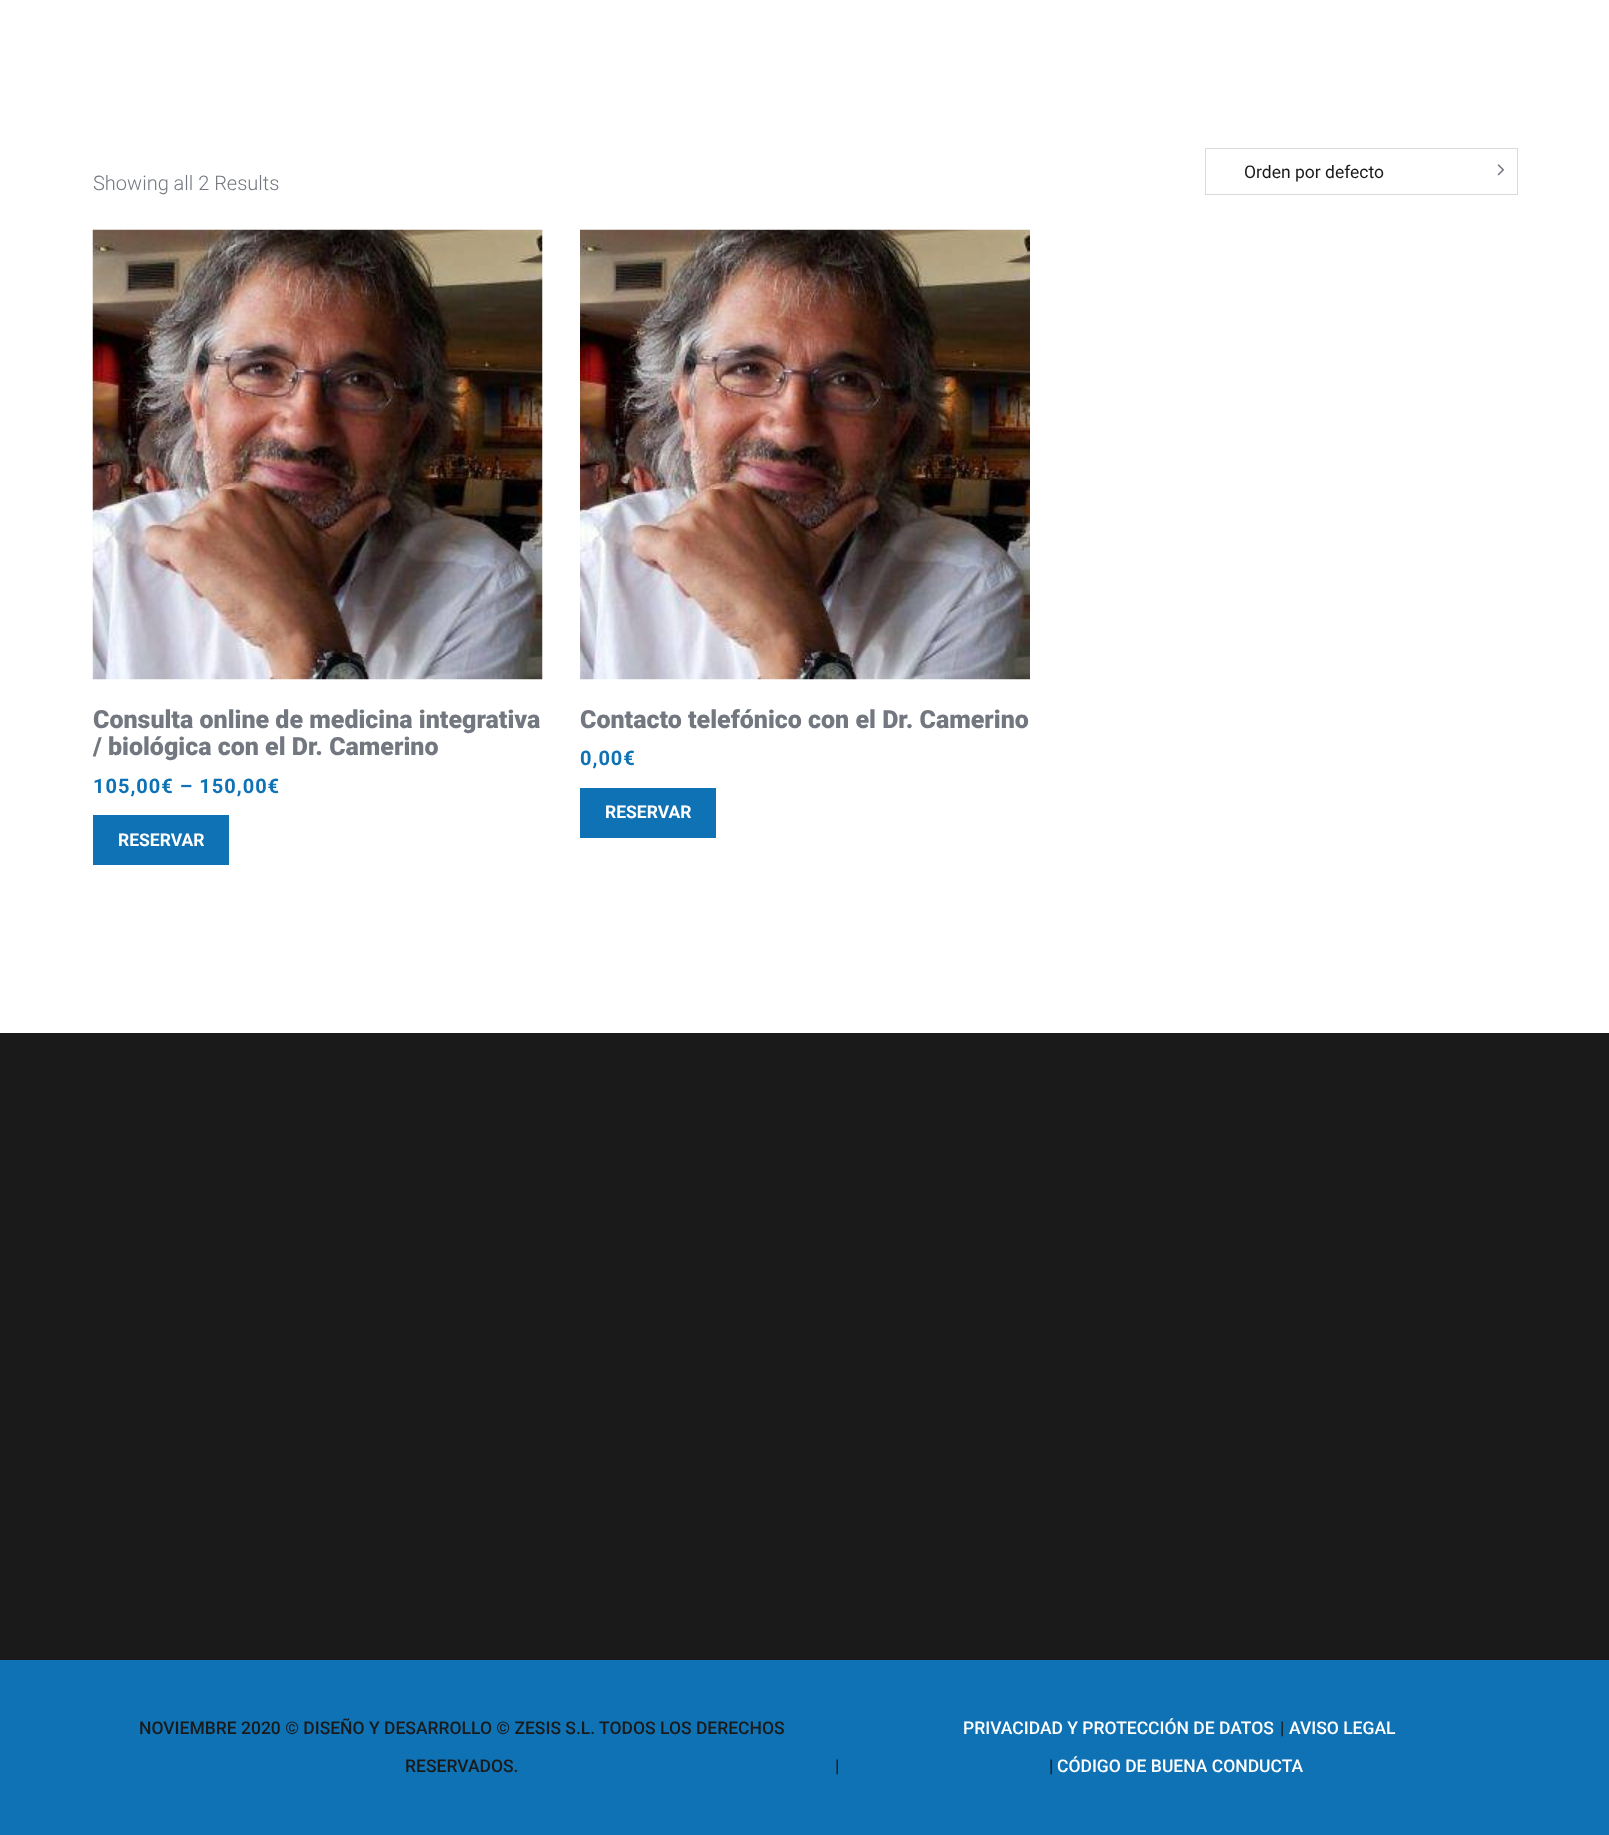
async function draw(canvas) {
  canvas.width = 1609;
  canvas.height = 1835;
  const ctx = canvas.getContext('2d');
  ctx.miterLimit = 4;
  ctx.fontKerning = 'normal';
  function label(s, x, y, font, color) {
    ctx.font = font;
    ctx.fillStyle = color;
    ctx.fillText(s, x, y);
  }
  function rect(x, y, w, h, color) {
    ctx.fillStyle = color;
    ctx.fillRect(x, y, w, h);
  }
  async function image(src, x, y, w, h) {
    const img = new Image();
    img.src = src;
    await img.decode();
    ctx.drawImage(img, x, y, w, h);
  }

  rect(0, 0, 1609, 1835, '#fff');
  ctx.strokeStyle = '#dadada';
  ctx.strokeRect(1205.5, 148.5, 312, 46);
  label('Orden por defecto', 1244, 178, '17.5px Roboto', '#1a1a1a');
  await image('assets/img1.png', 1497, 164, 8, 12);
  label('Showing all 2 Results', 93, 190, '300 20px Roboto', '#737880');
  await image('assets/img2.png', 92, 229, 451, 451);
  label('Consulta online de medicina integrativa', 93, 728, '900 25px Roboto', '#737880');
  ctx.save();
  ctx.beginPath();
  ctx.rect(93, 230, 450, 635);
  ctx.clip();
  label('/ biológica con el Dr. Camerino', 93, 755, '900 25px Roboto', '#737880');
  ctx.restore();
  ctx.letterSpacing = '1px';
  label('105,00€ – 150,00€', 93, 793, 'bold 20px Roboto', '#0f72b5');
  rect(93, 815, 136, 50, '#0f72b5');
  ctx.letterSpacing = '0px';
  label('RESERVAR', 118, 846, 'bold 17.5px Roboto', '#fff');
  await image('assets/img3.png', 580, 229, 450, 451);
  label('Contacto telefónico con el Dr. Camerino', 580, 728, '900 25px Roboto', '#737880');
  ctx.letterSpacing = '1px';
  label('0,00€', 580, 765, 'bold 20px Roboto', '#0f72b5');
  rect(580, 788, 136, 50, '#0f72b5');
  ctx.letterSpacing = '0px';
  label('RESERVAR', 605, 818, 'bold 17.5px Roboto', '#fff');
  rect(0, 1033, 1609, 627, '#1a1a1a');
  rect(0, 1660, 1609, 175, '#0f72b5');
  label('NOVIEMBRE 2020 © DISEÑO Y DESARROLLO © ZESIS S.L. TODOS LOS DERECHOS', 139, 1734, '500 17.5px Roboto', '#1a1a1a');
  label('RESERVADOS.', 405, 1772, '500 17.5px Roboto', '#1a1a1a');
  label('|', 835, 1772, '500 17.5px Roboto', '#1a1a1a');
  label('PRIVACIDAD Y PROTECCIÓN DE DATOS', 963, 1734, '500 17.5px Roboto', '#fff');
  label('|', 1280, 1734, '500 17.5px Roboto', '#1a1a1a');
  label('AVISO LEGAL', 1289, 1734, '500 17.5px Roboto', '#fff');
  label('|', 1049, 1772, '500 17.5px Roboto', '#1a1a1a');
  label('CÓDIGO DE BUENA CONDUCTA', 1057, 1772, '500 17.5px Roboto', '#fff');
}

draw(document.querySelector('canvas'));
